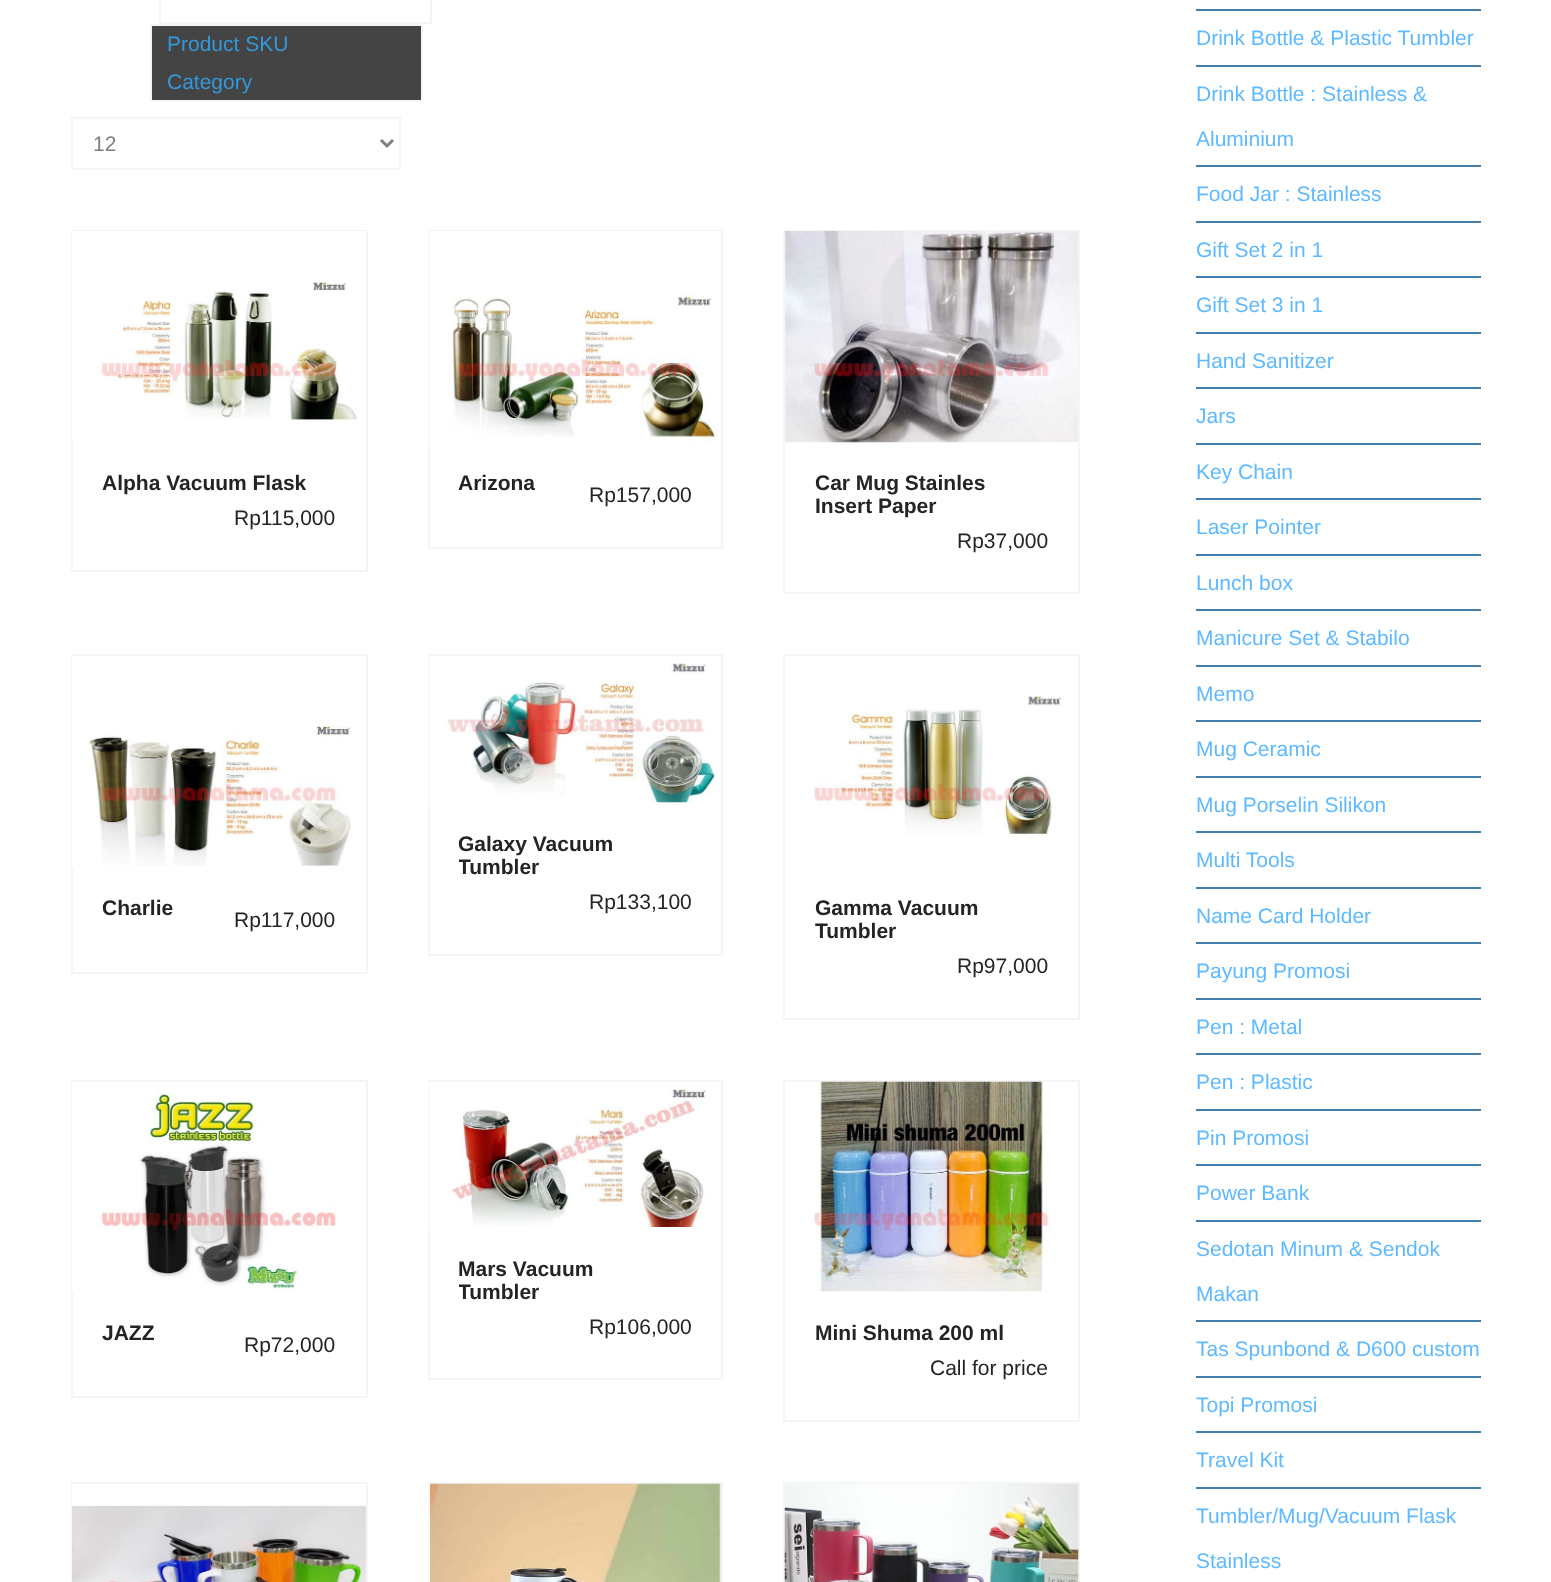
async function draw(canvas) {
  canvas.width = 1551;
  canvas.height = 1582;
  const ctx = canvas.getContext('2d');
  ctx.miterLimit = 4;
  ctx.fontKerning = 'normal';
  function label(s, x, y, font, color) {
    ctx.font = font;
    ctx.fillStyle = color;
    ctx.fillText(s, x, y);
  }
  function rect(x, y, w, h, color) {
    ctx.fillStyle = color;
    ctx.fillRect(x, y, w, h);
  }
  async function image(src, x, y, w, h) {
    const img = new Image();
    img.src = src;
    await img.decode();
    ctx.drawImage(img, x, y, w, h);
  }
  let path;

  rect(0, 0, 1551, 1582, '#fff');
  ctx.strokeStyle = '#f5f5f5';
  ctx.lineWidth = 2;
  ctx.strokeRect(160, -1, 271, 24);
  ctx.fillStyle = '#444';
  ctx.beginPath();
  ctx.rect(151, 25, 271, 76);
  ctx.fill();
  ctx.stroke();
  label('Product SKU', 167, 51, '21px Liberation Sans', '#3498db');
  label('Category', 167, 89, '21px Liberation Sans', '#3498db');
  ctx.strokeRect(72, 118, 328, 51);
  path = new Path2D('M381 140L387 146L393 140');
  ctx.strokeStyle = '#7d7e80';
  ctx.lineWidth = 3;
  ctx.stroke(path);
  label('12', 93, 151, '21px Liberation Sans', '#7d7e80');
  ctx.strokeStyle = '#f5f5f5';
  ctx.lineWidth = 2;
  ctx.strokeRect(72, 231, 295, 340);
  await image('assets/img1.png', 72, 231, 294, 211);
  label('Alpha Vacuum Flask', 102, 490, 'bold 21px Liberation Sans', '#242424');
  label('Rp115,000', 234, 525, '21px Liberation Sans', '#242424');
  ctx.strokeRect(429, 231, 293, 317);
  await image('assets/img2.png', 429, 231, 292, 211);
  label('Arizona', 458, 490, 'bold 21px Liberation Sans', '#242424');
  label('Rp157,000', 589, 502, '21px Liberation Sans', '#242424');
  ctx.strokeRect(784, 231, 295, 362);
  await image('assets/img3.png', 784, 231, 294, 212);
  label('Car Mug Stainles', 815, 490, 'bold 21px Liberation Sans', '#242424');
  label('Insert Paper', 815, 513, 'bold 21px Liberation Sans', '#242424');
  label('Rp37,000', 957, 548, '21px Liberation Sans', '#242424');
  ctx.strokeRect(72, 655, 295, 318);
  await image('assets/img4.png', 72, 656, 279, 211);
  label('Charlie', 102, 915, 'bold 21px Liberation Sans', '#242424');
  label('Rp117,000', 234, 927, '21px Liberation Sans', '#242424');
  ctx.strokeRect(429, 655, 293, 300);
  await image('assets/img5.png', 429, 656, 289, 147);
  label('Galaxy Vacuum', 458, 851, 'bold 21px Liberation Sans', '#242424');
  ctx.save();
  ctx.beginPath();
  ctx.rect(459, 833, 210, 46);
  ctx.clip();
  label('Tumbler', 458, 874, 'bold 21px Liberation Sans', '#242424');
  ctx.restore();
  label('Rp133,100', 589, 909, '21px Liberation Sans', '#242424');
  ctx.strokeRect(784, 655, 295, 364);
  await image('assets/img6.png', 813, 695, 248, 141);
  label('Gamma Vacuum', 815, 915, 'bold 21px Liberation Sans', '#242424');
  label('Tumbler', 815, 938, 'bold 21px Liberation Sans', '#242424');
  label('Rp97,000', 957, 973, '21px Liberation Sans', '#242424');
  ctx.strokeRect(429, 1081, 293, 298);
  await image('assets/img7.png', 429, 1082, 277, 145);
  label('Mars Vacuum', 458, 1276, 'bold 21px Liberation Sans', '#242424');
  ctx.save();
  ctx.beginPath();
  ctx.rect(459, 1257, 210, 47);
  ctx.clip();
  label('Tumbler', 458, 1299, 'bold 21px Liberation Sans', '#242424');
  ctx.restore();
  label('Rp106,000', 589, 1334, '21px Liberation Sans', '#242424');
  ctx.strokeRect(72, 1081, 295, 316);
  await image('assets/img8.png', 72, 1082, 265, 209);
  label('JAZZ', 102, 1340, 'bold 21px Liberation Sans', '#242424');
  label('Rp72,000', 244, 1352, '21px Liberation Sans', '#242424');
  ctx.strokeRect(784, 1081, 295, 340);
  await image('assets/img9.png', 813, 1081, 238, 211);
  label('Mini Shuma 200 ml', 815, 1340, 'bold 21px Liberation Sans', '#242424');
  label('Call for price', 930, 1375, '21px Liberation Sans', '#242424');
  ctx.strokeRect(72, 1483, 295, 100);
  await image('assets/img10.png', 72, 1484, 294, 98);
  ctx.strokeRect(429, 1483, 293, 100);
  await image('assets/img11.png', 429, 1483, 292, 99);
  ctx.strokeRect(784, 1483, 295, 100);
  await image('assets/img12.png', 784, 1483, 295, 99);
  rect(1196, 9, 285, 2, '#417eac');
  rect(1196, 65, 285, 2, '#417eac');
  label('Drink Bottle & Plastic Tumbler', 1196, 45, '21px Liberation Sans', '#5eb9ff');
  rect(1196, 165, 285, 2, '#417eac');
  label('Drink Bottle : Stainless &', 1196, 101, '21px Liberation Sans', '#5eb9ff');
  label('Aluminium', 1196, 146, '21px Liberation Sans', '#5eb9ff');
  rect(1196, 221, 285, 2, '#417eac');
  label('Food Jar : Stainless', 1196, 201, '21px Liberation Sans', '#5eb9ff');
  rect(1196, 276, 285, 2, '#417eac');
  label('Gift Set 2 in 1', 1196, 257, '21px Liberation Sans', '#5eb9ff');
  rect(1196, 332, 285, 2, '#417eac');
  label('Gift Set 3 in 1', 1196, 312, '21px Liberation Sans', '#5eb9ff');
  rect(1196, 387, 285, 2, '#417eac');
  label('Hand Sanitizer', 1196, 368, '21px Liberation Sans', '#5eb9ff');
  rect(1196, 443, 285, 2, '#417eac');
  label('Jars', 1196, 423, '21px Liberation Sans', '#5eb9ff');
  rect(1196, 498, 285, 2, '#417eac');
  label('Key Chain', 1196, 479, '21px Liberation Sans', '#5eb9ff');
  rect(1196, 554, 285, 2, '#417eac');
  label('Laser Pointer', 1196, 534, '21px Liberation Sans', '#5eb9ff');
  rect(1196, 609, 285, 2, '#417eac');
  label('Lunch box', 1196, 590, '21px Liberation Sans', '#5eb9ff');
  rect(1196, 665, 285, 2, '#417eac');
  label('Manicure Set & Stabilo', 1196, 645, '21px Liberation Sans', '#5eb9ff');
  rect(1196, 720, 285, 2, '#417eac');
  label('Memo', 1196, 701, '21px Liberation Sans', '#5eb9ff');
  rect(1196, 776, 285, 2, '#417eac');
  label('Mug Ceramic', 1196, 756, '21px Liberation Sans', '#5eb9ff');
  rect(1196, 831, 285, 2, '#417eac');
  label('Mug Porselin Silikon', 1196, 812, '21px Liberation Sans', '#5eb9ff');
  rect(1196, 887, 285, 2, '#417eac');
  label('Multi Tools', 1196, 867, '21px Liberation Sans', '#5eb9ff');
  rect(1196, 942, 285, 2, '#417eac');
  label('Name Card Holder', 1196, 923, '21px Liberation Sans', '#5eb9ff');
  rect(1196, 998, 285, 2, '#417eac');
  label('Payung Promosi', 1196, 978, '21px Liberation Sans', '#5eb9ff');
  rect(1196, 1053, 285, 2, '#417eac');
  label('Pen : Metal', 1196, 1034, '21px Liberation Sans', '#5eb9ff');
  rect(1196, 1109, 285, 2, '#417eac');
  label('Pen : Plastic', 1196, 1089, '21px Liberation Sans', '#5eb9ff');
  rect(1196, 1164, 285, 2, '#417eac');
  label('Pin Promosi', 1196, 1145, '21px Liberation Sans', '#5eb9ff');
  rect(1196, 1220, 285, 2, '#417eac');
  label('Power Bank', 1196, 1200, '21px Liberation Sans', '#5eb9ff');
  rect(1196, 1320, 285, 2, '#417eac');
  label('Sedotan Minum & Sendok', 1196, 1256, '21px Liberation Sans', '#5eb9ff');
  label('Makan', 1196, 1301, '21px Liberation Sans', '#5eb9ff');
  rect(1196, 1376, 285, 2, '#417eac');
  label('Tas Spunbond & D600 custom', 1196, 1356, '21px Liberation Sans', '#5eb9ff');
  rect(1196, 1431, 285, 2, '#417eac');
  label('Topi Promosi', 1196, 1412, '21px Liberation Sans', '#5eb9ff');
  rect(1196, 1487, 285, 2, '#417eac');
  label('Travel Kit', 1196, 1467, '21px Liberation Sans', '#5eb9ff');
  label('Tumbler/Mug/Vacuum Flask', 1196, 1523, '21px Liberation Sans', '#5eb9ff');
  label('Stainless', 1196, 1568, '21px Liberation Sans', '#5eb9ff');
}

draw(document.querySelector('canvas'));
